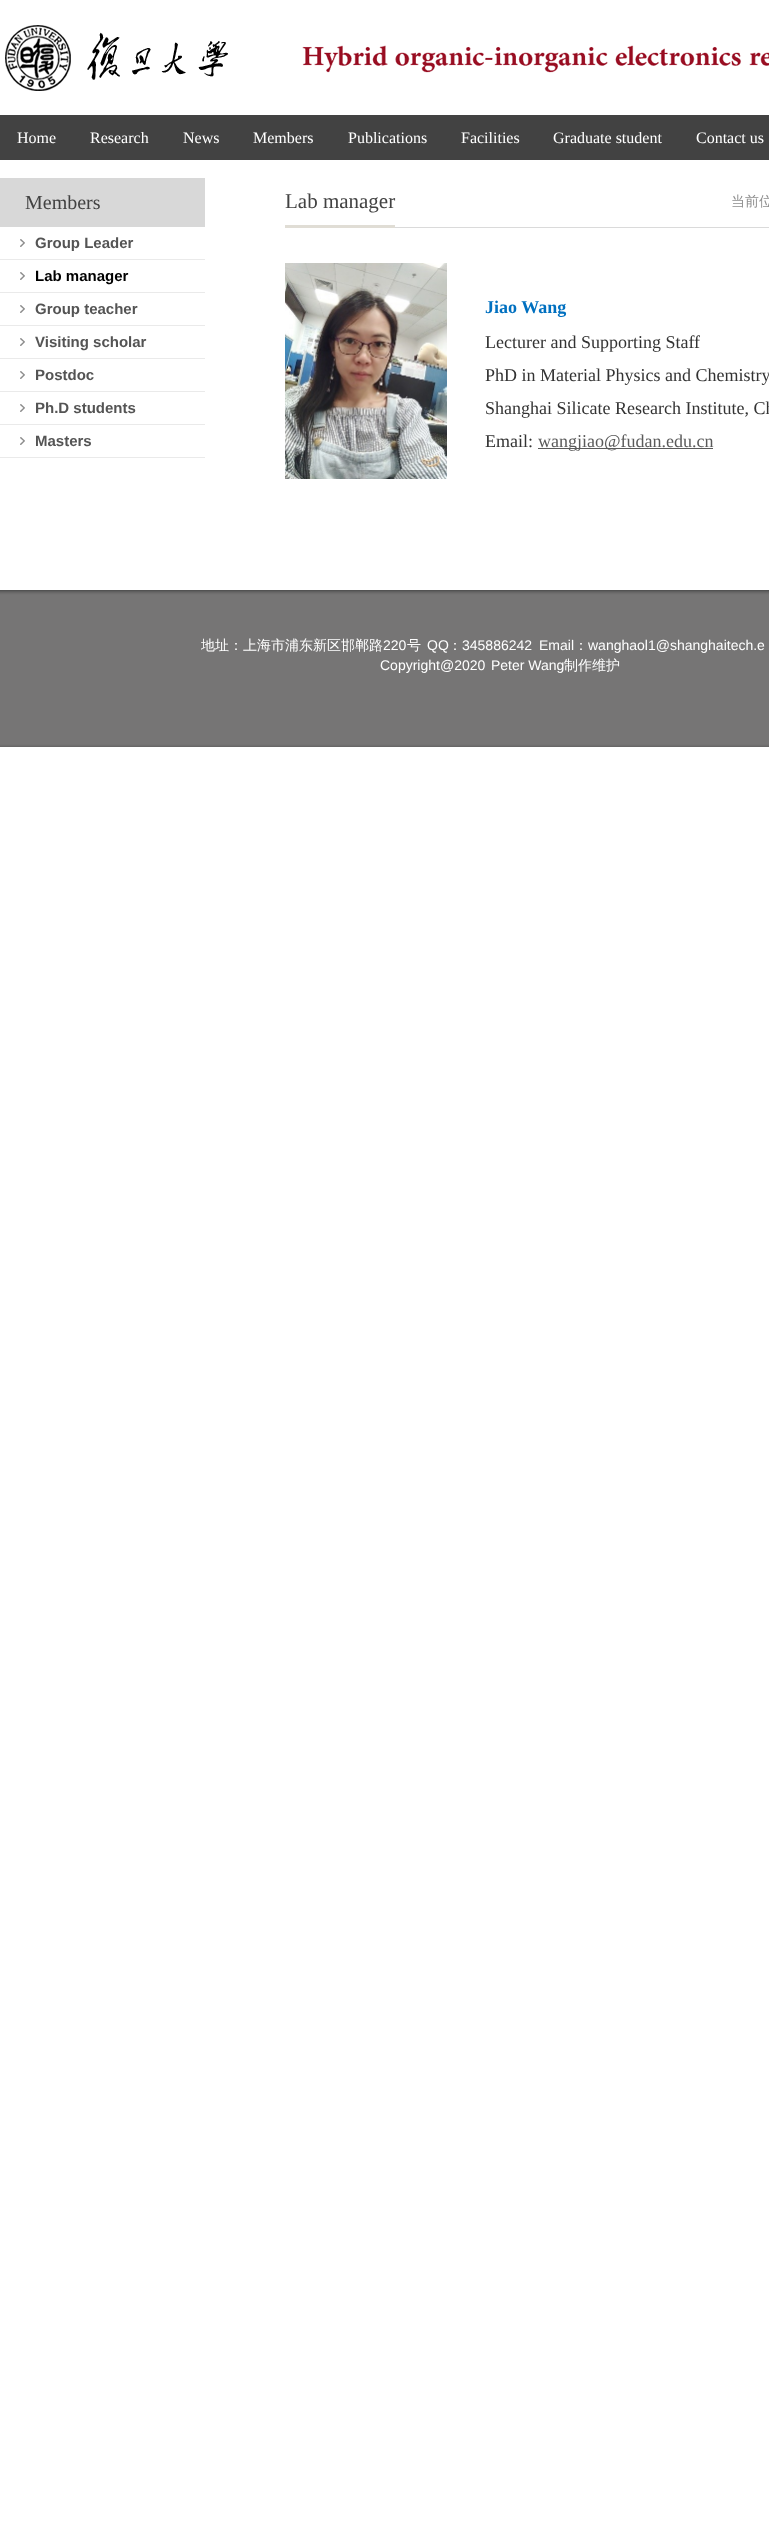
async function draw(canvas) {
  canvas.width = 769;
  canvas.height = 2524;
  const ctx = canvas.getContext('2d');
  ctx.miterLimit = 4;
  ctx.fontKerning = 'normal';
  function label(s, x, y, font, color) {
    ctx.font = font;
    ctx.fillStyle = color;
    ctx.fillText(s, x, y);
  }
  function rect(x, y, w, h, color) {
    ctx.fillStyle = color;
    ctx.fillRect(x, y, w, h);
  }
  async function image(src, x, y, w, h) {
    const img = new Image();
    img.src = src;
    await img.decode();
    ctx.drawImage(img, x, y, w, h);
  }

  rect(0, 0, 769, 2524, '#fff');
  await image('assets/img1.png', 5, 25, 223, 66);
  await image('assets/img2.png', 302, 45, 467, 28);
  rect(0, 115, 769, 45, '#424242');
  label('Home', 17, 143, '16px Liberation Serif', '#fff');
  label('Research', 90, 143, '16px Liberation Serif', '#fff');
  label('News', 183, 143, '16px Liberation Serif', '#fff');
  label('Members', 253, 143, '16px Liberation Serif', '#fff');
  label('Publications', 348, 143, '16px Liberation Serif', '#fff');
  label('Facilities', 461, 143, '16px Liberation Serif', '#fff');
  label('Graduate student', 553, 143, '16px Liberation Serif', '#fff');
  label('Contact us', 696, 143, '16px Liberation Serif', '#fff');
  rect(0, 178, 205, 49, '#d8d8d8');
  label('Members', 25, 209, '20px Liberation Serif', '#424242');
  await image('assets/img3.png', 20, 239, 5, 8);
  rect(0, 259, 205, 1, '#eaeaea');
  label('Group Leader', 35, 248, 'bold 15px Liberation Sans', '#545454');
  await image('assets/img3.png', 20, 272, 5, 8);
  rect(0, 292, 205, 1, '#eaeaea');
  label('Lab manager', 35, 281, 'bold 15px Liberation Sans', '#000');
  await image('assets/img3.png', 20, 305, 5, 8);
  rect(0, 325, 205, 1, '#eaeaea');
  label('Group teacher', 35, 314, 'bold 15px Liberation Sans', '#545454');
  await image('assets/img3.png', 20, 338, 5, 8);
  rect(0, 358, 205, 1, '#eaeaea');
  label('Visiting scholar', 35, 347, 'bold 15px Liberation Sans', '#545454');
  await image('assets/img3.png', 20, 371, 5, 8);
  rect(0, 391, 205, 1, '#eaeaea');
  label('Postdoc', 35, 380, 'bold 15px Liberation Sans', '#545454');
  await image('assets/img3.png', 20, 404, 5, 8);
  rect(0, 424, 205, 1, '#eaeaea');
  label('Ph.D students', 35, 413, 'bold 15px Liberation Sans', '#545454');
  await image('assets/img3.png', 20, 437, 5, 8);
  rect(0, 457, 205, 1, '#eaeaea');
  label('Masters', 35, 446, 'bold 15px Liberation Sans', '#545454');
  rect(395, 227, 374, 1, '#dadada');
  rect(285, 225, 110, 3, '#e0ddd5');
  label('Lab manager', 285, 208, '21px Liberation Serif', '#424242');
  label('当前位', 731, 206, '500 14px WenQuanYi Zen Hei', '#8e8e8e');
  await image('assets/img4.png', 285, 263, 162, 216);
  label('Jiao Wang', 485, 313, 'bold 18px Liberation Serif', '#0070c0');
  label('Lecturer and Supporting Staff', 485, 348, '18px Liberation Serif', '#333');
  label('PhD in Material Physics and Chemistry', 485, 381, '18px Liberation Serif', '#333');
  label('Shanghai Silicate Research Institute, Ch', 485, 414, '18px Liberation Serif', '#333');
  label('Email:', 485, 447, '18px Liberation Serif', '#333');
  rect(538, 448, 175, 1, '#5a5a5a');
  label('wangjiao@fudan.edu.cn', 538, 447, '18px Liberation Serif', '#5a5a5a');
  await image('assets/img5.png', 0, 590, 769, 157);
  label('地址：上海市浦东新区邯郸路', 201, 650, '500 14px WenQuanYi Zen Hei', '#fff');
  label('220', 383, 650, '14px Liberation Sans', '#fff');
  label('号', 407, 650, '500 14px WenQuanYi Zen Hei', '#fff');
  label('QQ', 427, 650, '14px Liberation Sans', '#fff');
  label('：', 448, 650, '500 14px WenQuanYi Zen Hei', '#fff');
  label('345886242', 462, 650, '14px Liberation Sans', '#fff');
  label('Email', 539, 650, '14px Liberation Sans', '#fff');
  label('：', 574, 650, '500 14px WenQuanYi Zen Hei', '#fff');
  label('wanghaol1@shanghaitech.e', 588, 650, '14px Liberation Sans', '#fff');
  label('Copyright@2020', 380, 670, '14px Liberation Sans', '#fff');
  label('Peter Wang', 491, 670, '14px Liberation Sans', '#fff');
  label('制作维护', 564, 670, '500 14px WenQuanYi Zen Hei', '#fff');
}

draw(document.querySelector('canvas'));
